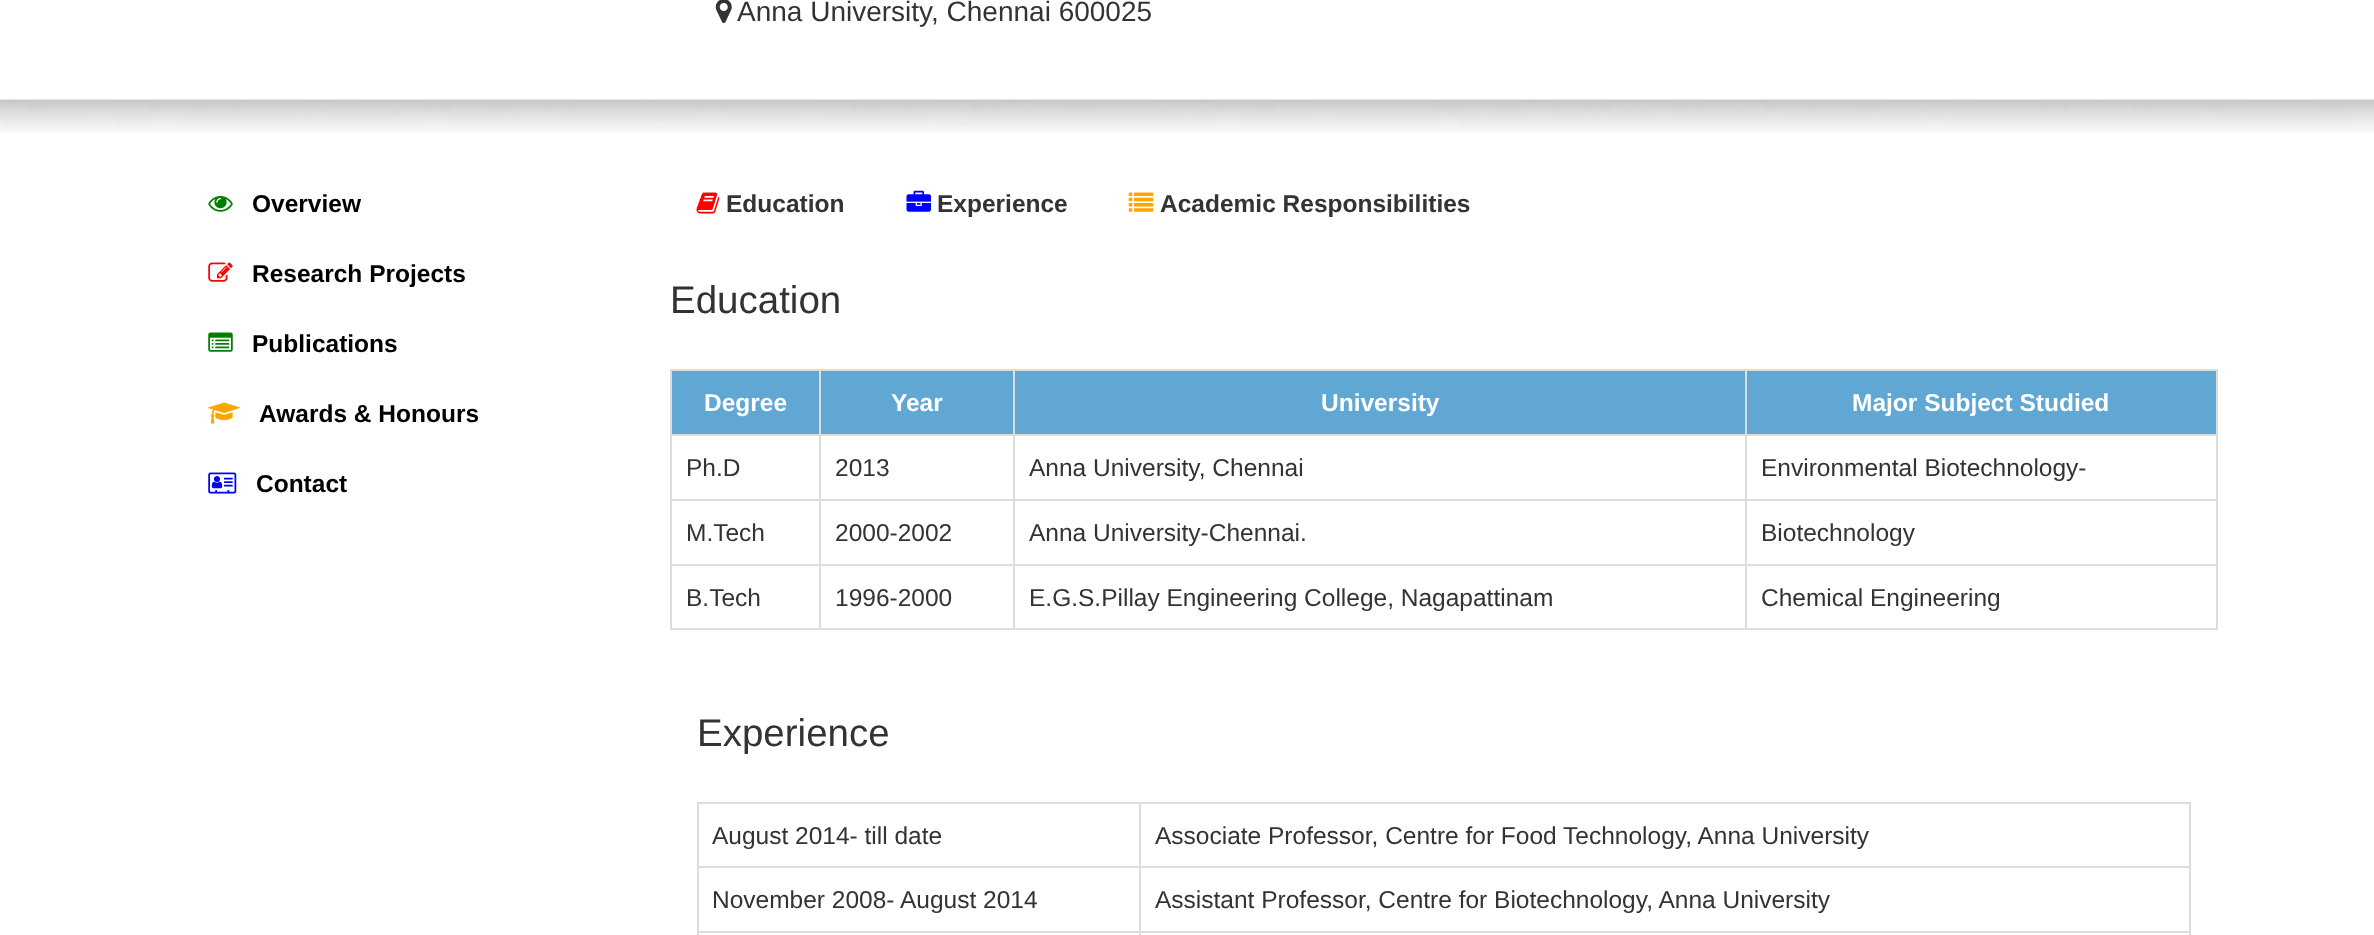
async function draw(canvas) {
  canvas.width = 2374;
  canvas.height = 935;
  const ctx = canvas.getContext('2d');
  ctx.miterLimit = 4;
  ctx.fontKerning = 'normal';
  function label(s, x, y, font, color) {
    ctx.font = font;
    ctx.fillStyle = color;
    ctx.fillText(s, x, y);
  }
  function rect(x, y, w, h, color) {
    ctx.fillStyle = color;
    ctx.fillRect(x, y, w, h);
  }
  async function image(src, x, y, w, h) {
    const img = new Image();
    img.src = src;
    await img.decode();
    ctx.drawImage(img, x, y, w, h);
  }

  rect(0, 0, 2374, 935, '#fff');
  await image('assets/img1.png', 715, 0, 17, 23);
  label('Anna University, Chennai 600025', 737, 21, '28px Liberation Sans', '#333');
  await image('assets/img2.png', 0, 99, 2374, 34);
  await image('assets/img3.png', 208, 196, 25, 16);
  label('Overview', 252, 212, 'bold 24.5px Liberation Sans', '#000');
  await image('assets/img4.png', 208, 262, 25, 20);
  label('Research Projects', 252, 282, 'bold 24.5px Liberation Sans', '#000');
  await image('assets/img5.png', 208, 332, 25, 20);
  label('Publications', 252, 352, 'bold 24.5px Liberation Sans', '#000');
  await image('assets/img6.png', 208, 402, 32, 22);
  label('Awards & Honours', 259, 422, 'bold 24.5px Liberation Sans', '#000');
  await image('assets/img7.png', 208, 472, 29, 22);
  label('Contact', 256, 492, 'bold 24.5px Liberation Sans', '#000');
  await image('assets/img8.png', 696, 192, 24, 22);
  label('Education', 726, 212, 'bold 24.5px Liberation Sans', '#333');
  await image('assets/img9.png', 906, 190, 25, 22);
  label('Experience', 937, 212, 'bold 24.5px Liberation Sans', '#333');
  await image('assets/img10.png', 1128, 192, 26, 20);
  label('Academic Responsibilities', 1160, 212, 'bold 24.5px Liberation Sans', '#333');
  label('Education', 670, 313, '38.5px Liberation Sans', '#333');
  rect(670, 369, 1547, 2, '#ddd');
  rect(2216, 369, 2, 261, '#ddd');
  rect(670, 628, 1547, 2, '#ddd');
  rect(670, 369, 2, 261, '#ddd');
  rect(672, 371, 147, 63, '#60a7d4');
  label('Degree', 704, 411, 'bold 24.5px Liberation Sans', '#fff');
  rect(821, 371, 192, 63, '#60a7d4');
  rect(1745, 434, 472, 2, '#ddd');
  rect(1745, 499, 472, 2, '#ddd');
  rect(1745, 564, 472, 2, '#ddd');
  rect(1745, 564, 2, 66, '#ddd');
  rect(1013, 564, 734, 2, '#ddd');
  rect(1745, 499, 2, 66, '#ddd');
  rect(1013, 499, 734, 2, '#ddd');
  rect(1745, 434, 2, 67, '#ddd');
  rect(1013, 434, 734, 2, '#ddd');
  rect(1013, 564, 2, 66, '#ddd');
  rect(819, 564, 196, 2, '#ddd');
  rect(1013, 499, 2, 66, '#ddd');
  rect(819, 499, 196, 2, '#ddd');
  rect(1013, 434, 2, 67, '#ddd');
  rect(819, 434, 196, 2, '#ddd');
  rect(819, 564, 2, 66, '#ddd');
  rect(670, 564, 151, 2, '#ddd');
  rect(819, 499, 2, 66, '#ddd');
  rect(670, 499, 151, 2, '#ddd');
  rect(819, 434, 2, 67, '#ddd');
  rect(670, 434, 151, 2, '#ddd');
  rect(819, 369, 2, 67, '#ddd');
  label('Year', 891, 411, 'bold 24.5px Liberation Sans', '#fff');
  rect(1015, 371, 730, 63, '#60a7d4');
  rect(1013, 369, 2, 67, '#ddd');
  label('University', 1321, 411, 'bold 24.5px Liberation Sans', '#fff');
  rect(1747, 371, 469, 63, '#60a7d4');
  rect(1745, 369, 2, 67, '#ddd');
  label('Major Subject Studied', 1852, 411, 'bold 24.5px Liberation Sans', '#fff');
  label('Ph.D', 686, 476, '24.5px Liberation Sans', '#333');
  label('2013', 835, 476, '24.5px Liberation Sans', '#333');
  label('Anna University, Chennai', 1029, 476, '24.5px Liberation Sans', '#333');
  label('Environmental Biotechnology-', 1761, 476, '24.5px Liberation Sans', '#333');
  label('M.Tech', 686, 541, '24.5px Liberation Sans', '#333');
  label('2000-2002', 835, 541, '24.5px Liberation Sans', '#333');
  label('Anna University-Chennai.', 1029, 541, '24.5px Liberation Sans', '#333');
  label('Biotechnology', 1761, 541, '24.5px Liberation Sans', '#333');
  label('B.Tech', 686, 606, '24.5px Liberation Sans', '#333');
  label('1996-2000', 835, 606, '24.5px Liberation Sans', '#333');
  label('E.G.S.Pillay Engineering College, Nagapattinam', 1029, 606, '24.5px Liberation Sans', '#333');
  label('Chemical Engineering', 1761, 606, '24.5px Liberation Sans', '#333');
  label('Experience', 697, 746, '38.5px Liberation Sans', '#333');
  rect(697, 802, 1494, 2, '#ddd');
  rect(2189, 802, 2, 133, '#ddd');
  rect(697, 802, 2, 133, '#ddd');
  label('August 2014- till date', 712, 844, '24.5px Liberation Sans', '#333');
  rect(1139, 866, 1052, 2, '#ddd');
  rect(1139, 931, 1052, 2, '#ddd');
  rect(1139, 931, 2, 4, '#ddd');
  rect(697, 931, 444, 2, '#ddd');
  rect(1139, 866, 2, 67, '#ddd');
  rect(697, 866, 444, 2, '#ddd');
  rect(1139, 802, 2, 66, '#ddd');
  label('Associate Professor, Centre for Food Technology, Anna University', 1155, 844, '24.5px Liberation Sans', '#333');
  label('November 2008- August 2014', 712, 908, '24.5px Liberation Sans', '#333');
  label('Assistant Professor, Centre for Biotechnology, Anna University', 1155, 908, '24.5px Liberation Sans', '#333');
}

draw(document.querySelector('canvas'));
